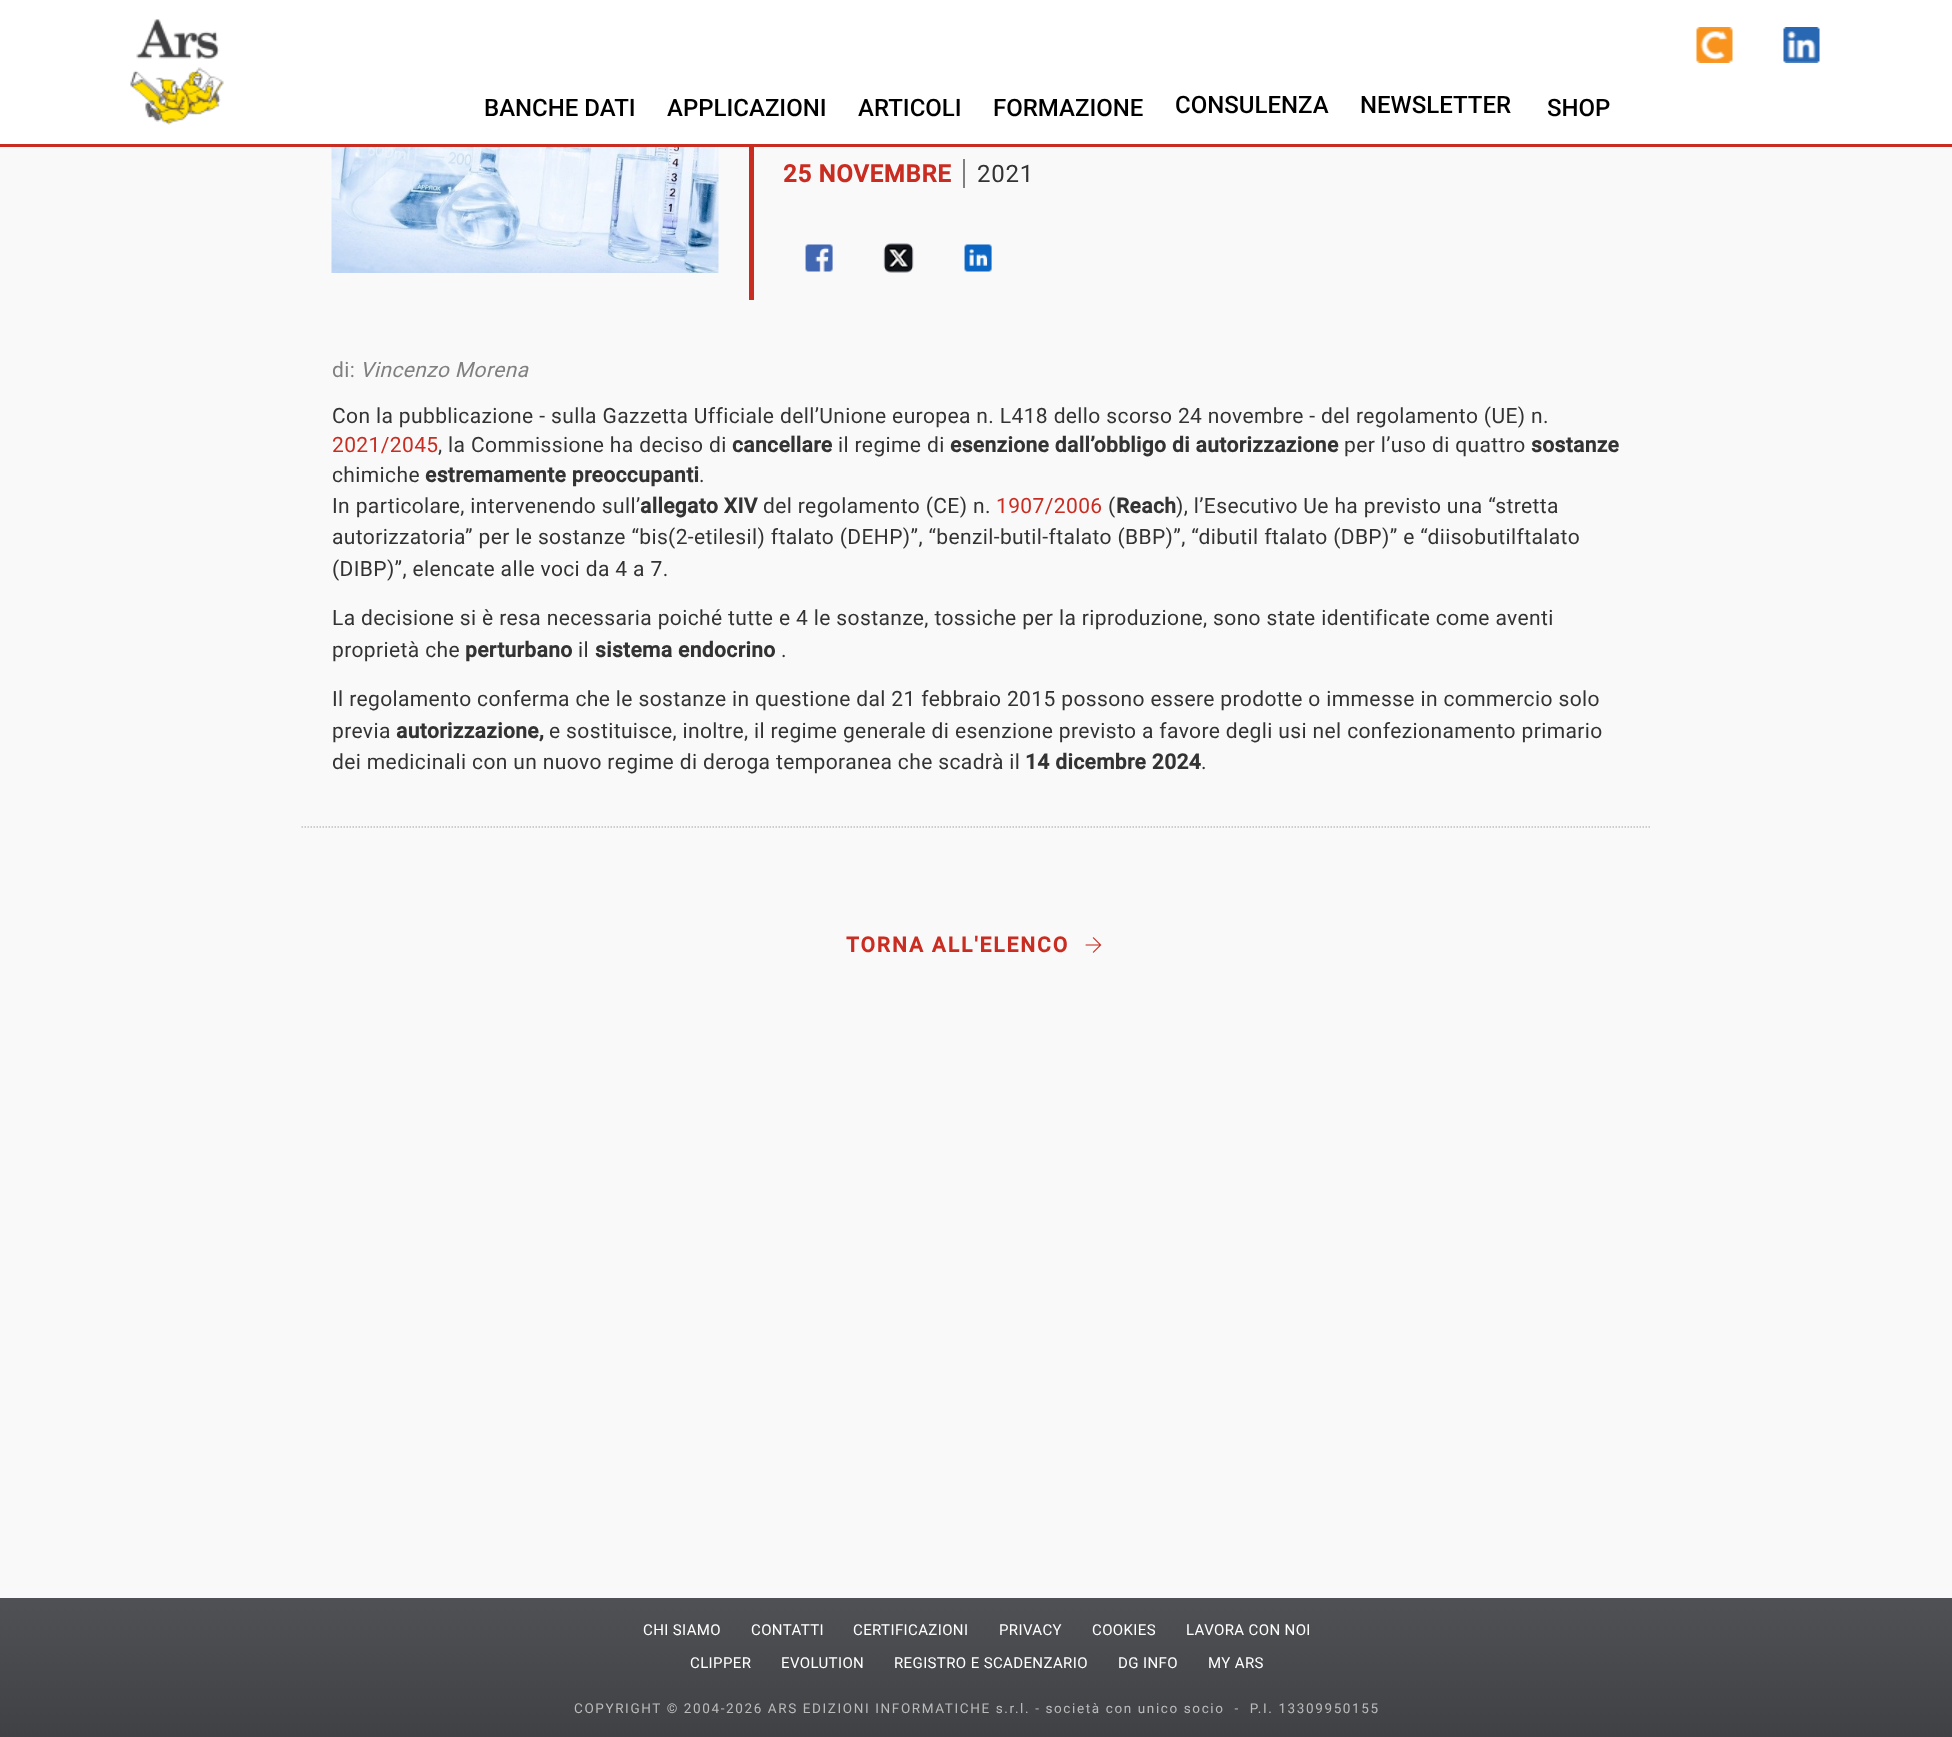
async function draw(canvas) {
  canvas.width = 1952;
  canvas.height = 1737;
  const ctx = canvas.getContext('2d');
  ctx.miterLimit = 4;
  ctx.fontKerning = 'normal';
  function label(s, x, y, font, color) {
    ctx.font = font;
    ctx.fillStyle = color;
    ctx.fillText(s, x, y);
  }
  function rect(x, y, w, h, color) {
    ctx.fillStyle = color;
    ctx.fillRect(x, y, w, h);
  }
  async function image(src, x, y, w, h) {
    const img = new Image();
    img.src = src;
    await img.decode();
    ctx.drawImage(img, x, y, w, h);
  }
  let gradient, path;

  rect(0, 0, 1952, 1737, '#f9f9f9');
  rect(0, 0, 1952, 144, '#fff');
  rect(0, 144, 1952, 3, '#c92d22');
  await image('assets/img1.png', 130, 19, 94, 106);
  await image('assets/img2.png', 1696, 27, 37, 36);
  await image('assets/img3.png', 1783, 27, 37, 36);
  label('BANCHE DATI', 484, 116, '500 24px Roboto', '#000');
  label('APPLICAZIONI', 667, 116, '500 24px Roboto', '#000');
  label('ARTICOLI', 858, 116, '500 24px Roboto', '#000');
  label('FORMAZIONE', 993, 116, '500 24px Roboto', '#000');
  label('CONSULENZA', 1175, 113, '500 24px Roboto', '#000');
  label('NEWSLETTER', 1360, 113, '500 24px Roboto', '#000');
  label('SHOP', 1547, 116, '500 24px Roboto', '#000');
  await image('assets/img4.png', 331, 147, 388, 126);
  rect(749, 147, 5, 153, '#c92d22');
  ctx.letterSpacing = '0.75px';
  label('25 NOVEMBRE', 783, 182, 'bold 24px Roboto', '#c92d22');
  rect(963, 159, 2, 29, '#808080');
  label('2021', 977, 182, '24px Roboto', '#333');
  await image('assets/img5.png', 805, 244, 28, 28);
  await image('assets/img6.png', 883, 243, 31, 30);
  await image('assets/img7.png', 964, 244, 28, 28);
  path = new Path2D('M301.5 827H1651.5');
  ctx.strokeStyle = '#c0c0c0';
  ctx.lineWidth = 1.5;
  ctx.setLineDash([1.5, 1.5]);
  ctx.stroke(path);
  ctx.letterSpacing = '0.38px';
  label('di:', 332, 377, '21px Roboto', '#808080');
  label('Vincenzo Morena', 360, 377, 'italic 21px Roboto', '#808080');
  label('Con la pubblicazione - sulla Gazzetta Ufficiale dell’Unione europea n. L418 dello scorso 24 novembre - del regolamento (UE) n.', 332, 423, '21px Roboto', '#333');
  label('2021/2045', 332, 452, '21px Roboto', '#c92d22');
  label(', la Commissione ha deciso di', 438, 452, '21px Roboto', '#333');
  label('cancellare', 732, 452, 'bold 21px Roboto', '#333');
  label('il regime di', 838, 452, '21px Roboto', '#333');
  label('esenzione dall’obbligo di autorizzazione', 950, 452, 'bold 21px Roboto', '#333');
  label('per l’uso di quattro', 1344, 452, '21px Roboto', '#333');
  label('sostanze', 1531, 452, 'bold 21px Roboto', '#333');
  label('chimiche', 332, 482, '21px Roboto', '#333');
  label('estremamente preoccupanti', 425, 482, 'bold 21px Roboto', '#333');
  label('.', 699, 482, '21px Roboto', '#333');
  label('In particolare, intervenendo sull’', 332, 513, '21px Roboto', '#333');
  label('allegato XIV', 640, 513, 'bold 21px Roboto', '#333');
  label('del regolamento (CE) n.', 763, 513, '21px Roboto', '#333');
  label('1907/2006', 996, 513, '21px Roboto', '#c92d22');
  label('(', 1108, 513, '21px Roboto', '#333');
  label('Reach', 1116, 513, 'bold 21px Roboto', '#333');
  label('), l’Esecutivo Ue ha previsto una “stretta', 1176, 513, '21px Roboto', '#333');
  label('autorizzatoria” per le sostanze “bis(2-etilesil) ftalato (DEHP)”, “benzil-butil-ftalato (BBP)”, “dibutil ftalato (DBP)” e “diisobutilftalato', 332, 544, '21px Roboto', '#333');
  label('(DIBP)”, elencate alle voci da 4 a 7.', 332, 576, '21px Roboto', '#333');
  label('La decisione si è resa necessaria poiché tutte e 4 le sostanze, tossiche per la riproduzione, sono state identificate come aventi', 332, 625, '21px Roboto', '#333');
  label('proprietà che', 332, 657, '21px Roboto', '#333');
  label('perturbano', 465, 657, 'bold 21px Roboto', '#333');
  label('il', 578, 657, '21px Roboto', '#333');
  label('sistema endocrino', 595, 657, 'bold 21px Roboto', '#333');
  label('.', 781, 657, '21px Roboto', '#333');
  label('Il regolamento conferma che le sostanze in questione dal 21 febbraio 2015 possono essere prodotte o immesse in commercio solo', 332, 706, '21px Roboto', '#333');
  label('previa', 332, 738, '21px Roboto', '#333');
  label('autorizzazione,', 396, 738, 'bold 21px Roboto', '#333');
  label('e sostituisce, inoltre, il regime generale di esenzione previsto a favore degli usi nel confezionamento primario', 549, 738, '21px Roboto', '#333');
  label('dei medicinali con un nuovo regime di deroga temporanea che scadrà il', 332, 769, '21px Roboto', '#333');
  label('14 dicembre 2024', 1025, 769, 'bold 21px Roboto', '#333');
  label('.', 1201, 769, '21px Roboto', '#333');
  ctx.letterSpacing = '1.9px';
  label('TORNA ALL\'ELENCO', 846, 952, 'bold 21px Roboto', '#c92d22');
  await image('assets/img8.png', 1085, 937, 17, 16);
  gradient = ctx.createLinearGradient(977, 1598, 977, 1737);
  gradient.addColorStop(0, '#505155');
  gradient.addColorStop(1, '#404145');
  ctx.fillStyle = gradient;
  ctx.fillRect(0, 1598, 1952, 139);
  ctx.letterSpacing = '0.38px';
  label('CHI SIAMO', 643, 1635, '15px Roboto', '#fff');
  label('CONTATTI', 751, 1635, '15px Roboto', '#fff');
  label('CERTIFICAZIONI', 853, 1635, '15px Roboto', '#fff');
  label('PRIVACY', 999, 1635, '15px Roboto', '#fff');
  label('COOKIES', 1092, 1635, '15px Roboto', '#fff');
  label('LAVORA CON NOI', 1186, 1635, '15px Roboto', '#fff');
  label('CLIPPER', 690, 1668, '15px Roboto', '#fff');
  label('EVOLUTION', 781, 1668, '15px Roboto', '#fff');
  label('REGISTRO E SCADENZARIO', 894, 1668, '15px Roboto', '#fff');
  label('DG INFO', 1118, 1668, '15px Roboto', '#fff');
  label('MY ARS', 1208, 1668, '15px Roboto', '#fff');
  ctx.letterSpacing = '1.62px';
  label('COPYRIGHT © 2004-2026 ARS EDIZIONI INFORMATICHE s.r.l. - società con unico socio  -  P.I. 13309950155', 574, 1713, '13.5px Roboto', '#bbb');
}

draw(document.querySelector('canvas'));
